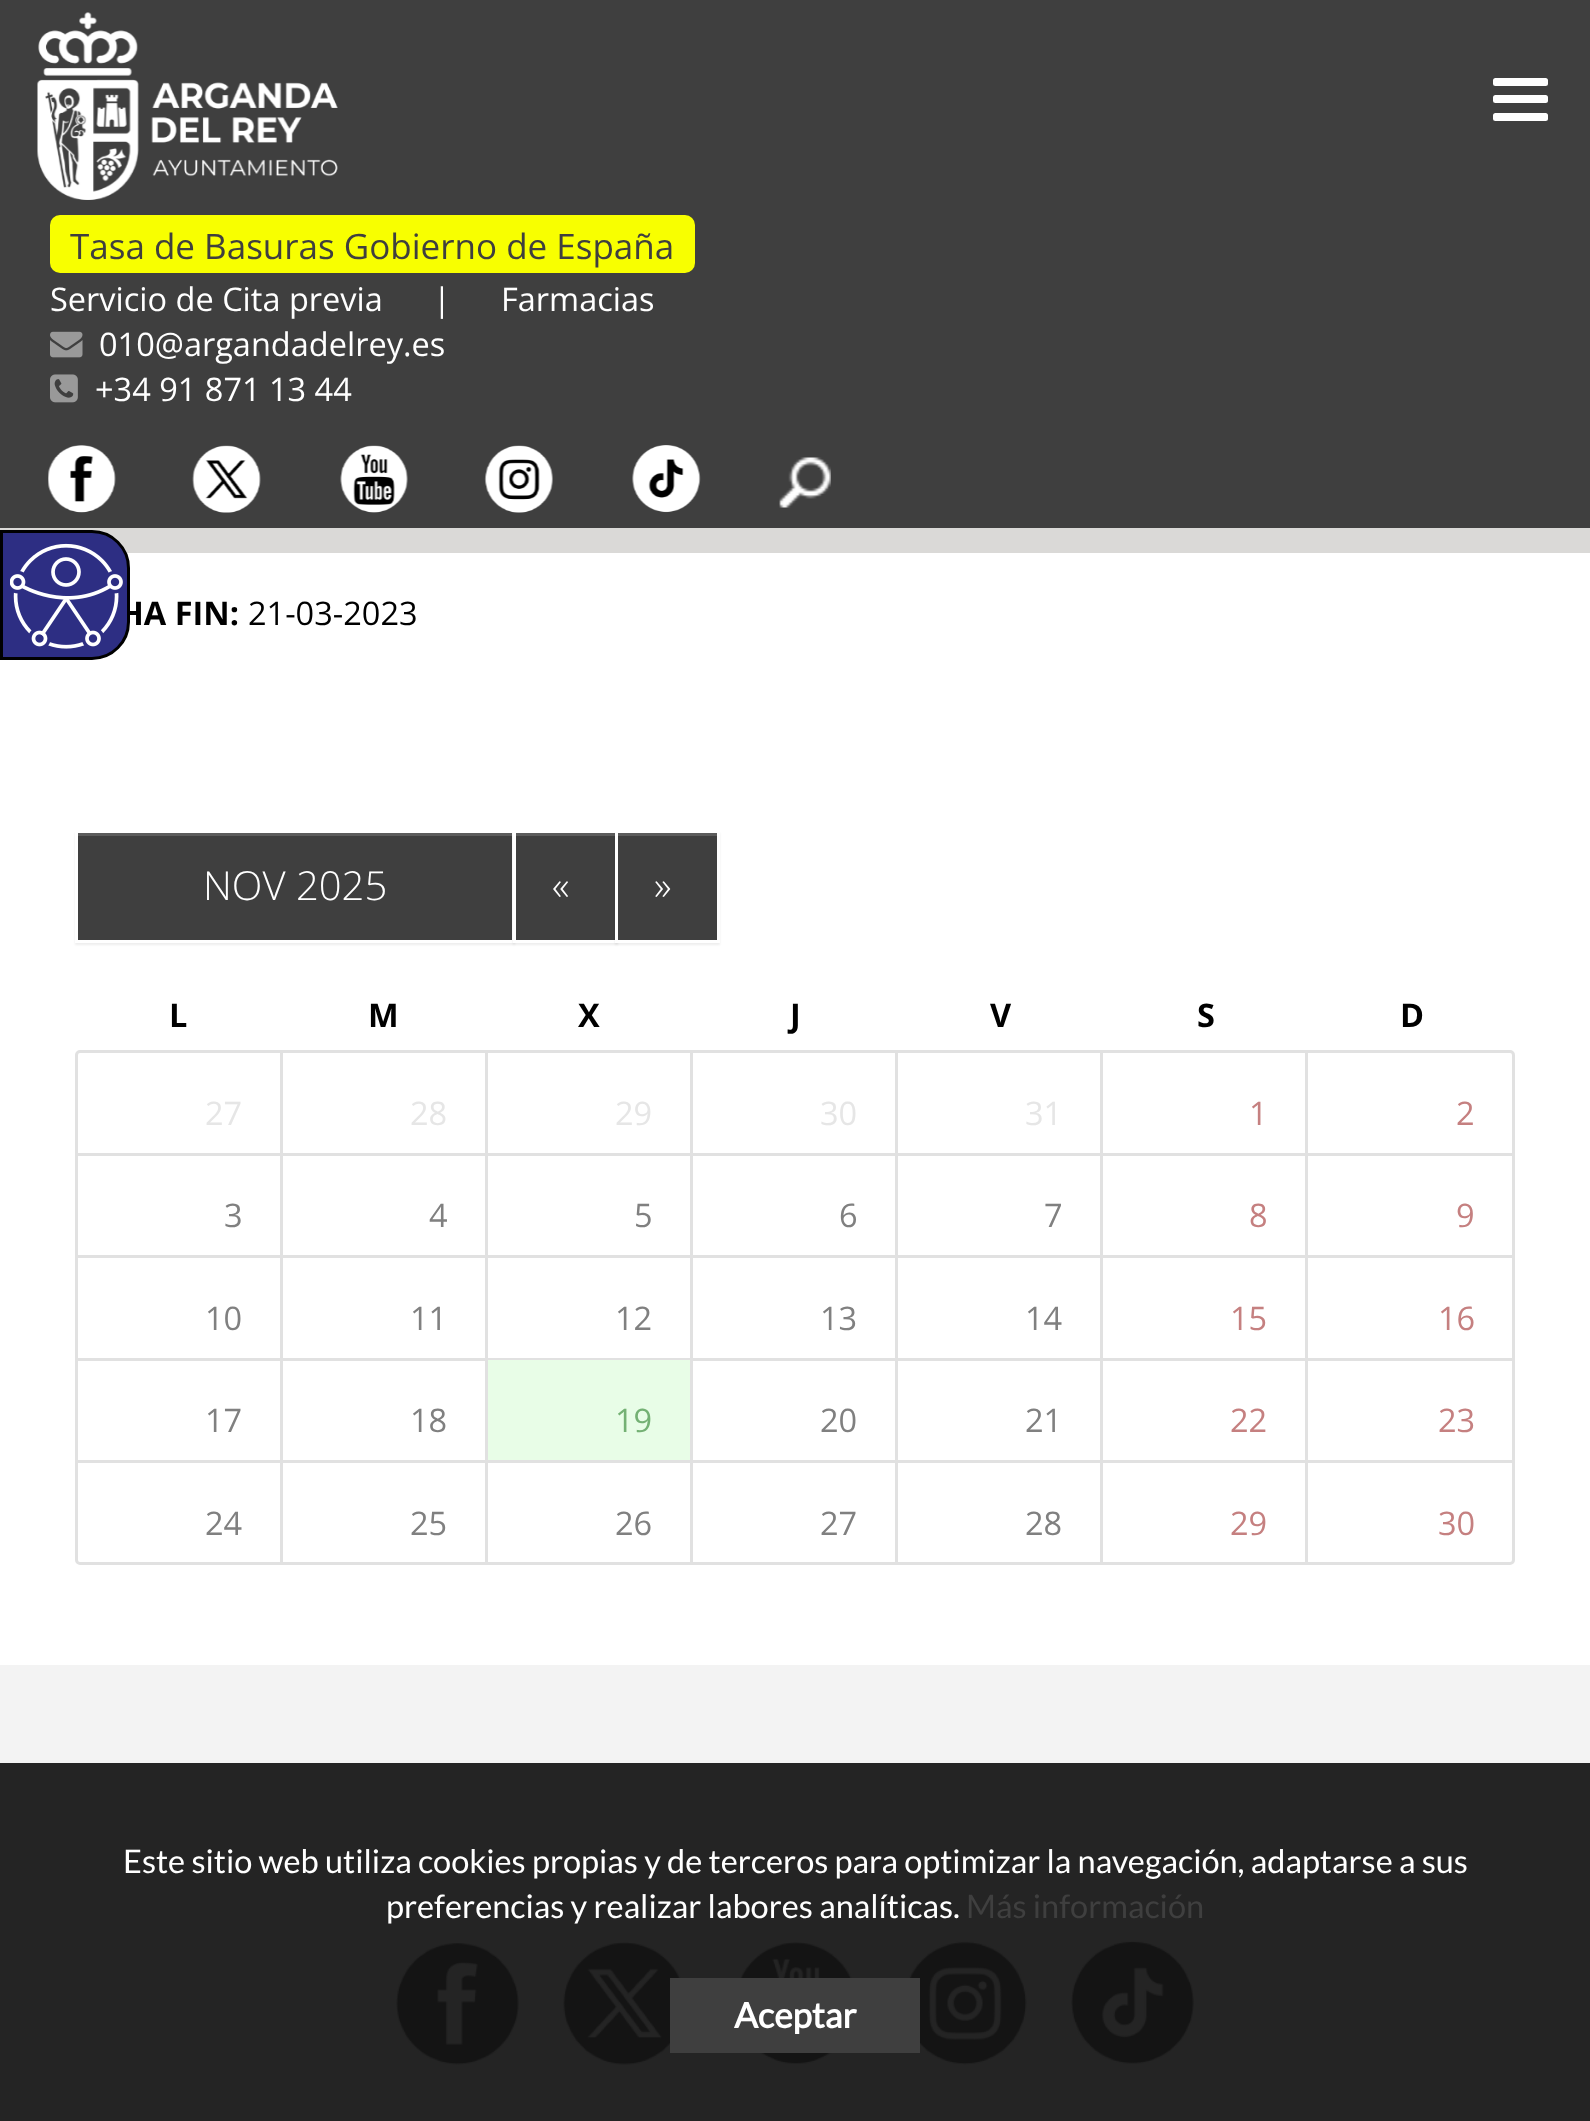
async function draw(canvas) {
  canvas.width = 1590;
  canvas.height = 2121;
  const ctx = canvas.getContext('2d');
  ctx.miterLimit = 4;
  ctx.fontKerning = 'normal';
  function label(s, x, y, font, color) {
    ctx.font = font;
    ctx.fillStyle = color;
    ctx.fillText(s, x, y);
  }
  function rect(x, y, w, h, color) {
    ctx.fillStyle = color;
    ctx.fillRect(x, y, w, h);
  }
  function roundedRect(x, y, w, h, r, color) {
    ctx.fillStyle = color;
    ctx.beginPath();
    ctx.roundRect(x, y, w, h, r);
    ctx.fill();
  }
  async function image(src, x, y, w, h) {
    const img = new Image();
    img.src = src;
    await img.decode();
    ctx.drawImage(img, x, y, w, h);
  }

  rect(0, 0, 1590, 2121, '#fff');
  rect(0, 528, 1590, 25, '#dad9d7');
  rect(0, 0, 1590, 528, '#3f3f3f');
  roundedRect(1493, 78, 55, 8, 2.5, '#fff');
  roundedRect(1493, 95, 55, 8, 2.5, '#fff');
  roundedRect(1493, 113, 55, 8, 2.5, '#fff');
  await image('assets/img1.png', 37, 12, 301, 188);
  roundedRect(50, 215, 645, 58, 10, '#f8ff00');
  label('Tasa de Basuras Gobierno de España', 70, 259, '35px Open Sans', '#3f3f3f');
  label('Servicio de Cita previa', 50, 311, '32.5px Open Sans', '#fff');
  label('|', 433, 311, '32.5px Open Sans', '#fff');
  label('Farmacias', 501, 311, '32.5px Open Sans', '#fff');
  await image('assets/img2.png', 50, 331, 33, 27);
  label('010@argandadelrey.es', 99, 356, '32.5px Open Sans', '#fff');
  await image('assets/img3.png', 50, 374, 28, 29);
  label('+34 91 871 13 44', 95, 401, '32.5px Open Sans', '#fff');
  roundedRect(50, 448, 63, 62, 31, '#000');
  await image('assets/img4.png', 48, 445, 68, 68);
  roundedRect(195, 448, 63, 62, 31, '#000');
  await image('assets/img5.png', 192, 445, 69, 68);
  ctx.beginPath();
  ctx.arc(374, 479, 31, 0, 2 * Math.PI);
  ctx.fill();
  await image('assets/img6.png', 340, 445, 68, 68);
  ctx.beginPath();
  ctx.arc(519, 479, 31, 0, 2 * Math.PI);
  ctx.fill();
  await image('assets/img7.png', 484, 445, 69, 68);
  roundedRect(635, 448, 63, 62, 31, '#000');
  await image('assets/img8.png', 632, 445, 69, 68);
  await image('assets/img9.png', 779, 457, 52, 51);
  label('HA FIN:', 119, 625, 'bold 32.5px Open Sans', '#000');
  label('21-03-2023', 248, 625, '32.5px Open Sans', '#000');
  ctx.fillStyle = '#00000012';
  ctx.filter = 'blur(1px)';
  ctx.beginPath();
  ctx.rect(75, 833, 440, 112);
  ctx.fill();
  ctx.filter = 'none';
  rect(78, 836, 434, 104, '#3f3f3f');
  rect(78, 833, 435, 3, '#5c5c5c');
  ctx.strokeStyle = '#fff';
  ctx.lineWidth = 3;
  ctx.strokeRect(76.5, 831.5, 437, 110);
  label('NOV 2025', 203, 900, '300 40px Open Sans', '#fff');
  ctx.fillStyle = '#00000012';
  ctx.filter = 'blur(1px)';
  ctx.beginPath();
  ctx.rect(513, 833, 105, 112);
  ctx.fill();
  ctx.filter = 'none';
  rect(516, 836, 99, 104, '#3f3f3f');
  rect(515, 833, 100, 3, '#5c5c5c');
  ctx.strokeRect(514.5, 831.5, 102, 110);
  label('«', 552, 900, '300 40px Open Sans', '#fff');
  ctx.fillStyle = '#00000012';
  ctx.filter = 'blur(1px)';
  ctx.beginPath();
  ctx.rect(615, 833, 105, 112);
  ctx.fill();
  ctx.filter = 'none';
  rect(618, 836, 99, 104, '#3f3f3f');
  rect(618, 833, 100, 3, '#5c5c5c');
  ctx.strokeRect(616.5, 831.5, 102, 110);
  label('»', 654, 900, '300 40px Open Sans', '#fff');
  label('L', 169, 1027, 'bold 32.5px Open Sans', '#000');
  label('M', 368, 1027, 'bold 32.5px Open Sans', '#000');
  label('X', 578, 1027, 'bold 32.5px Open Sans', '#000');
  label('J', 790, 1027, 'bold 32.5px Open Sans', '#000');
  label('V', 990, 1027, 'bold 32.5px Open Sans', '#000');
  label('S', 1197, 1027, 'bold 32.5px Open Sans', '#000');
  label('D', 1400, 1027, 'bold 32.5px Open Sans', '#000');
  ctx.beginPath();
  ctx.roundRect(76.5, 1051.5, 1437, 512, 3.5);
  ctx.strokeStyle = '#e1e1e1';
  ctx.stroke();
  rect(78, 1153, 1435, 3, '#e1e1e1');
  rect(280, 1053, 3, 100, '#e1e1e1');
  label('27', 205, 1125, '32.5px Open Sans', '#e6e6e6');
  rect(485, 1053, 3, 100, '#e1e1e1');
  label('28', 410, 1125, '32.5px Open Sans', '#e6e6e6');
  rect(690, 1053, 3, 100, '#e1e1e1');
  label('29', 615, 1125, '32.5px Open Sans', '#e6e6e6');
  rect(895, 1053, 3, 100, '#e1e1e1');
  label('30', 820, 1125, '32.5px Open Sans', '#e6e6e6');
  rect(1100, 1053, 3, 100, '#e1e1e1');
  label('31', 1025, 1125, '32.5px Open Sans', '#e6e6e6');
  rect(1305, 1053, 3, 100, '#e1e1e1');
  label('1', 1249, 1125, '32.5px Open Sans', '#c58080');
  label('2', 1456, 1125, '32.5px Open Sans', '#c58080');
  rect(78, 1255, 1435, 3, '#e1e1e1');
  rect(280, 1155, 3, 100, '#e1e1e1');
  label('3', 224, 1227, '32.5px Open Sans', '#808080');
  rect(485, 1155, 3, 100, '#e1e1e1');
  label('4', 429, 1227, '32.5px Open Sans', '#808080');
  rect(690, 1155, 3, 100, '#e1e1e1');
  label('5', 634, 1227, '32.5px Open Sans', '#808080');
  rect(895, 1155, 3, 100, '#e1e1e1');
  label('6', 839, 1227, '32.5px Open Sans', '#808080');
  rect(1100, 1155, 3, 100, '#e1e1e1');
  label('7', 1044, 1227, '32.5px Open Sans', '#808080');
  rect(1305, 1155, 3, 100, '#e1e1e1');
  label('8', 1249, 1227, '32.5px Open Sans', '#c58080');
  label('9', 1456, 1227, '32.5px Open Sans', '#c58080');
  rect(78, 1358, 1435, 3, '#e1e1e1');
  rect(280, 1258, 3, 100, '#e1e1e1');
  label('10', 205, 1330, '32.5px Open Sans', '#808080');
  rect(485, 1258, 3, 100, '#e1e1e1');
  label('11', 410, 1330, '32.5px Open Sans', '#808080');
  rect(690, 1258, 3, 100, '#e1e1e1');
  label('12', 615, 1330, '32.5px Open Sans', '#808080');
  rect(895, 1258, 3, 100, '#e1e1e1');
  label('13', 820, 1330, '32.5px Open Sans', '#808080');
  rect(1100, 1258, 3, 100, '#e1e1e1');
  label('14', 1025, 1330, '32.5px Open Sans', '#808080');
  rect(1305, 1258, 3, 100, '#e1e1e1');
  label('15', 1230, 1330, '32.5px Open Sans', '#c58080');
  label('16', 1438, 1330, '32.5px Open Sans', '#c58080');
  rect(78, 1460, 1435, 3, '#e1e1e1');
  rect(280, 1360, 3, 100, '#e1e1e1');
  label('17', 205, 1432, '32.5px Open Sans', '#808080');
  rect(485, 1360, 3, 100, '#e1e1e1');
  label('18', 410, 1432, '32.5px Open Sans', '#808080');
  rect(690, 1360, 3, 100, '#e1e1e1');
  rect(488, 1360, 202, 100, '#e8fde7');
  label('19', 615, 1432, '32.5px Open Sans', '#74b174');
  rect(895, 1360, 3, 100, '#e1e1e1');
  label('20', 820, 1432, '32.5px Open Sans', '#808080');
  rect(1100, 1360, 3, 100, '#e1e1e1');
  label('21', 1025, 1432, '32.5px Open Sans', '#808080');
  rect(1305, 1360, 3, 100, '#e1e1e1');
  label('22', 1230, 1432, '32.5px Open Sans', '#c58080');
  label('23', 1438, 1432, '32.5px Open Sans', '#c58080');
  rect(280, 1463, 3, 100, '#e1e1e1');
  label('24', 205, 1535, '32.5px Open Sans', '#808080');
  rect(485, 1463, 3, 100, '#e1e1e1');
  label('25', 410, 1535, '32.5px Open Sans', '#808080');
  rect(690, 1463, 3, 100, '#e1e1e1');
  label('26', 615, 1535, '32.5px Open Sans', '#808080');
  rect(895, 1463, 3, 100, '#e1e1e1');
  label('27', 820, 1535, '32.5px Open Sans', '#808080');
  rect(1100, 1463, 3, 100, '#e1e1e1');
  label('28', 1025, 1535, '32.5px Open Sans', '#808080');
  rect(1305, 1463, 3, 100, '#e1e1e1');
  label('29', 1230, 1535, '32.5px Open Sans', '#c58080');
  label('30', 1438, 1535, '32.5px Open Sans', '#c58080');
  ctx.fillStyle = '#2d2e83';
  ctx.beginPath();
  ctx.roundRect(1.5, 531.5, 127, 127, [0, 36.5, 36.5, 0]);
  ctx.fill();
  ctx.strokeStyle = '#000';
  ctx.stroke();
  await image('assets/img10.png', 10, 543, 113, 106);
  rect(0, 1665, 1590, 98, '#f3f3f3');
  rect(0, 1763, 1590, 358, '#242424');
  await image('assets/img11.png', 396, 1943, 123, 122);
  await image('assets/img12.png', 563, 1942, 118, 123);
  await image('assets/img13.png', 740, 1942, 112, 122);
  await image('assets/img14.png', 909, 1941, 118, 124);
  await image('assets/img15.png', 1071, 1941, 123, 123);
  label('Este sitio web utiliza cookies propias y de terceros para optimizar la navegación, adaptarse a sus', 123, 1873, '32.5px Lato', '#fff');
  label('preferencias y realizar labores analíticas.', 386, 1918, '32.5px Lato', '#fff');
  label('Más información', 966, 1918, '32.5px Lato', '#3f3f3f');
  rect(670, 1978, 250, 75, '#3f3f3f');
  label('Aceptar', 734, 2028, 'bold 35px Lato', '#fff');
}

draw(document.querySelector('canvas'));
